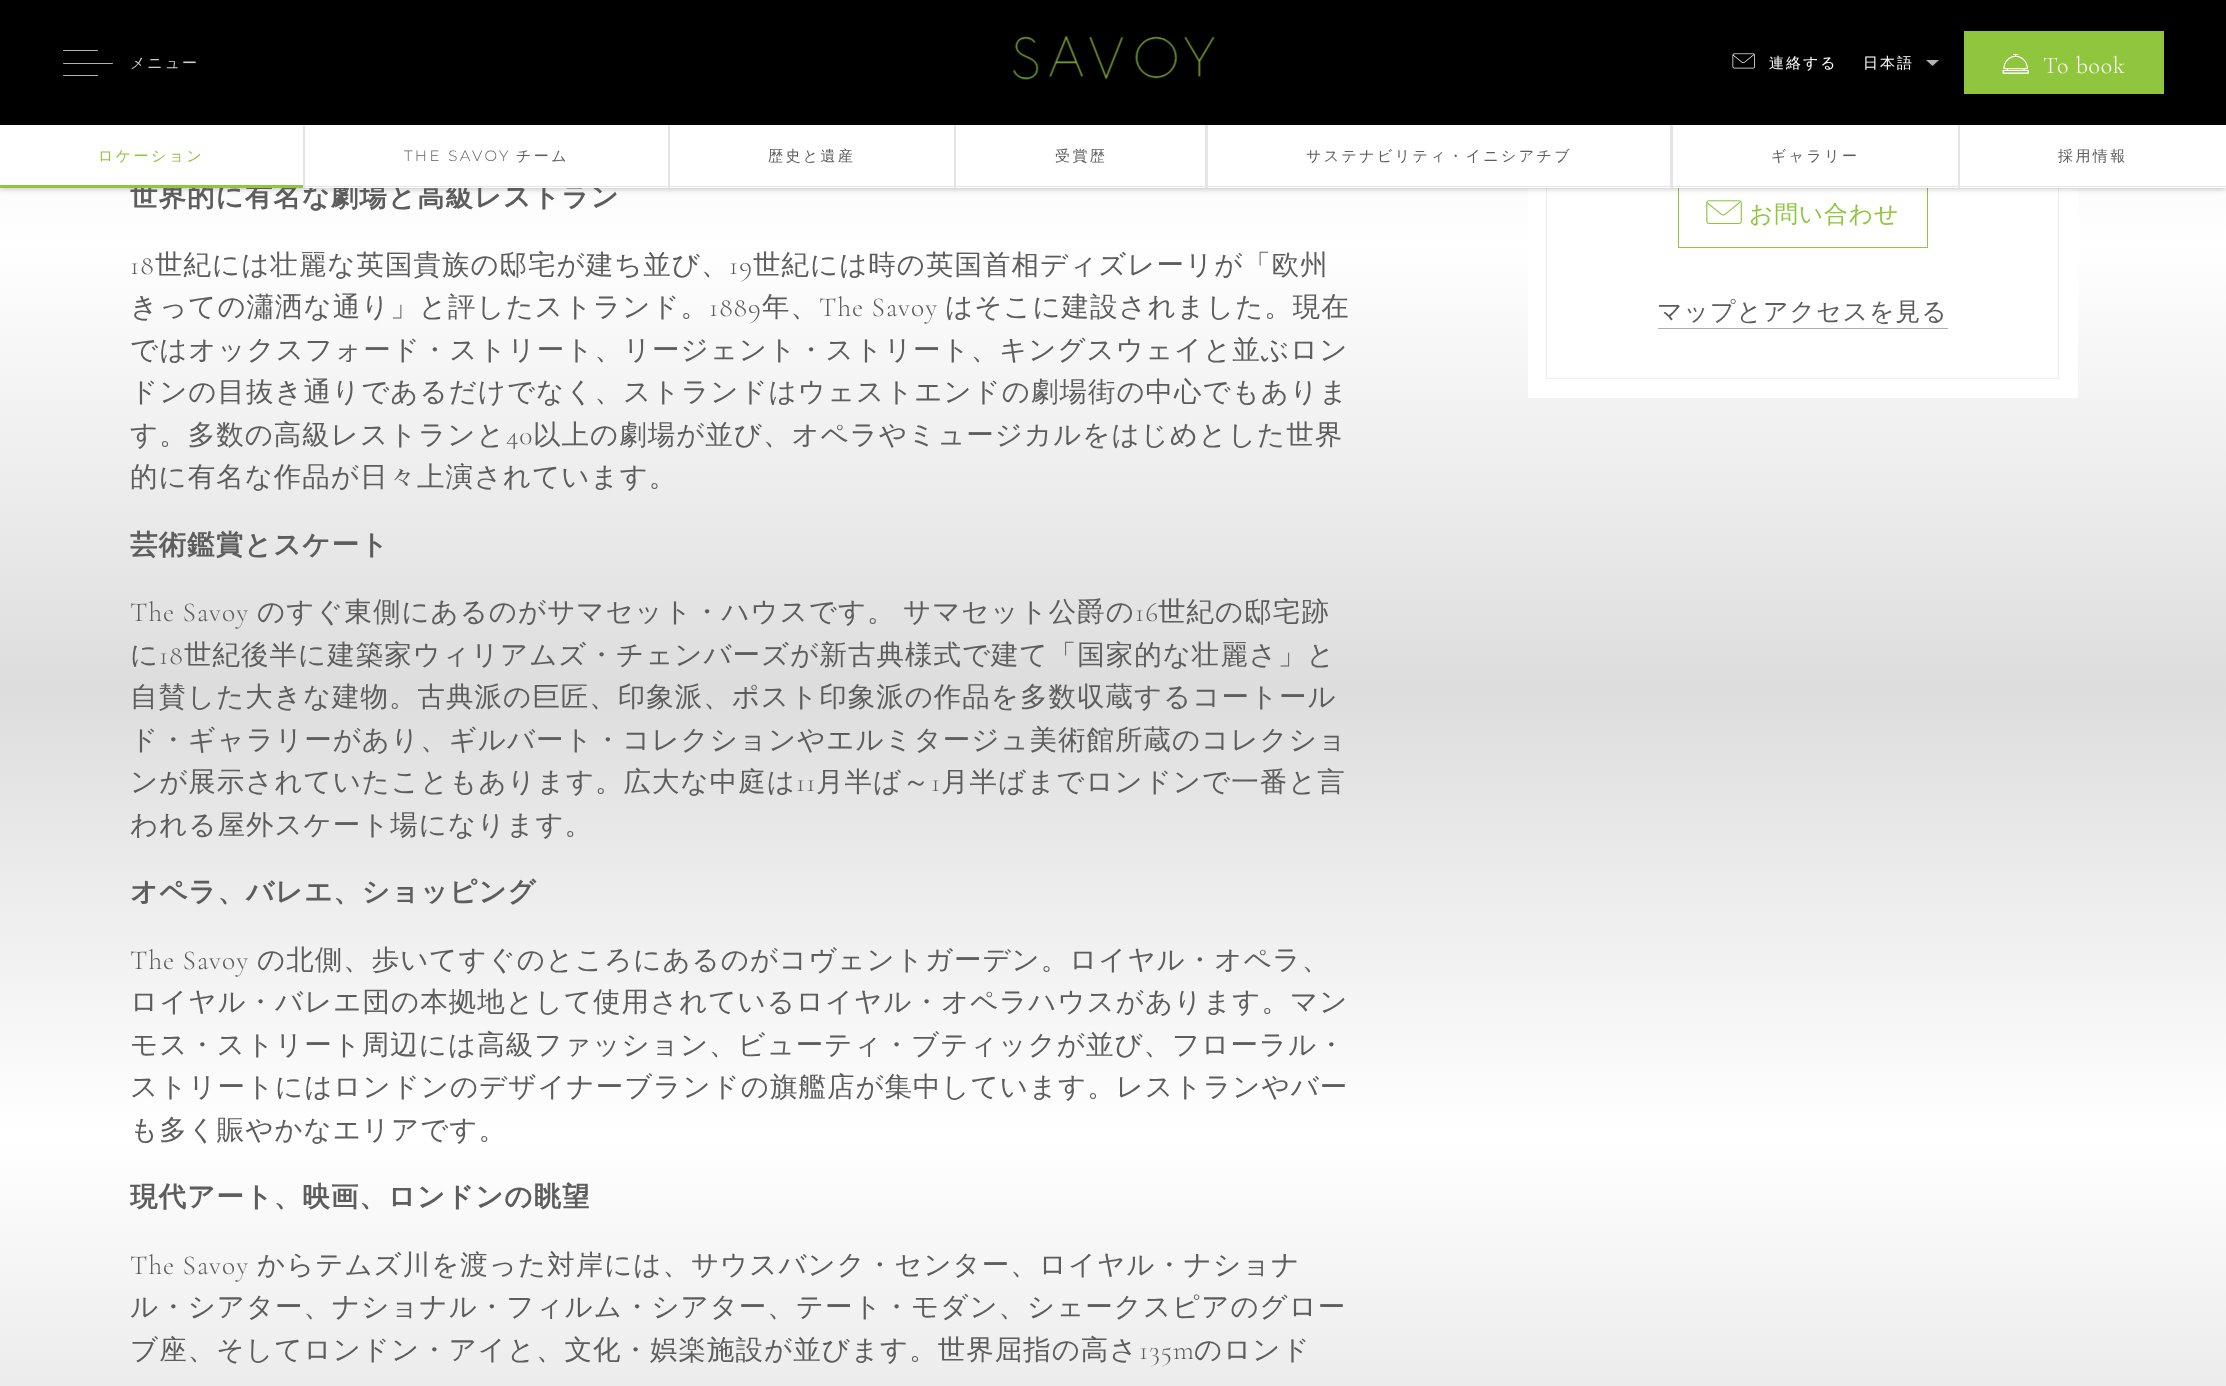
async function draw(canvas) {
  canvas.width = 2226;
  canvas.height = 1386;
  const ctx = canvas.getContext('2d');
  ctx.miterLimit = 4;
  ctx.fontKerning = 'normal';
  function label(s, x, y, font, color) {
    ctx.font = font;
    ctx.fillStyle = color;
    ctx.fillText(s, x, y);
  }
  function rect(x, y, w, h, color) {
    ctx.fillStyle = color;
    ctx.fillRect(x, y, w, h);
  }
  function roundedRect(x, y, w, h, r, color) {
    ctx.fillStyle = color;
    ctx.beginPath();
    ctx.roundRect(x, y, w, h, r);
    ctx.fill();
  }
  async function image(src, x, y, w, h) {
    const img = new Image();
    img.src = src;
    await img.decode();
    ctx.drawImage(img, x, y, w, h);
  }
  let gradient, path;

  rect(0, 0, 2226, 1386, '#fff');
  gradient = ctx.createLinearGradient(1113, 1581, 1113, -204);
  gradient.addColorStop(0, '#ddd');
  gradient.addColorStop(0.25, '#fff');
  gradient.addColorStop(0.5, '#ddd');
  gradient.addColorStop(0.75, '#fff');
  gradient.addColorStop(1, '#ddd');
  ctx.fillStyle = gradient;
  ctx.fillRect(0, 188, 2226, 1198);
  rect(1528, 188, 550, 210, '#fff');
  ctx.strokeStyle = '#ededed';
  ctx.strokeRect(1546.5, -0.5, 512, 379);
  ctx.strokeStyle = '#90c53e';
  ctx.strokeRect(1678.5, 183.5, 249, 64);
  ctx.fillStyle = '#0000004d';
  ctx.filter = 'blur(3px)';
  ctx.beginPath();
  ctx.rect(0, 125, 2226, 63);
  ctx.fill();
  ctx.filter = 'none';
  rect(0, 0, 2226, 125, '#000');
  roundedRect(63, 63, 50, 1, 0.5, '#b3b3b3');
  roundedRect(63, 50, 35, 1, 0.5, '#b3b3b3');
  roundedRect(63, 75, 35, 1, 0.5, '#b3b3b3');
  ctx.letterSpacing = '2px';
  label('メニュー', 130, 68, '500 15px WenQuanYi Zen Hei', '#ccc');
  await image('assets/img1.png', 1012, 36, 203, 44);
  await image('assets/img2.png', 1732, 53, 23, 16);
  label('連絡する', 1769, 68, '500 15px WenQuanYi Zen Hei', '#fff');
  label('日本語', 1863, 68, '500 15px WenQuanYi Zen Hei', '#fff');
  ctx.fillStyle = '#b3b3b3';
  path = new Path2D('M1926 60H1939L1932.5 66Z');
  ctx.fill(path);
  rect(1964, 31, 200, 63, '#90c53e');
  await image('assets/img3.png', 2002, 54, 27, 20);
  await image('assets/img4.png', 2002, 54, 27, 20);
  ctx.letterSpacing = '0.9px';
  label('To book', 2043, 73, '300 23.75px Cormorant Garamond', '#fff');
  ctx.letterSpacing = '1px';
  label('世界的に有名な劇場と高級レストラン', 130, 206, 'bold 27.5px WenQuanYi Zen Hei', '#5d5d5d');
  rect(0, 125, 1958, 63, '#fff');
  rect(303, 125, 2, 63, '#e5e5e5');
  ctx.letterSpacing = '2.4px';
  label('ロケーション', 98, 161, '500 15px WenQuanYi Zen Hei', '#90c53e');
  rect(0, 185, 303, 3, '#90c53e');
  rect(668, 125, 2, 63, '#e5e5e5');
  label('THE SAVOY', 404, 161, '300 15px Montserrat', '#5d5d5d');
  label('チーム', 516, 161, '500 15px WenQuanYi Zen Hei', '#5d5d5d');
  rect(305, 186, 363, 1, '#e5e5e5');
  rect(954, 125, 2, 63, '#e5e5e5');
  label('歴史と遺産', 768, 161, '500 15px WenQuanYi Zen Hei', '#5d5d5d');
  rect(670, 186, 284, 1, '#e5e5e5');
  rect(1205, 125, 3, 63, '#e5e5e5');
  label('受賞歴', 1055, 161, '500 15px WenQuanYi Zen Hei', '#5d5d5d');
  rect(956, 186, 249, 1, '#e5e5e5');
  rect(1670, 125, 3, 63, '#e5e5e5');
  label('サステナビリティ・イニシアチブ', 1306, 161, '500 15px WenQuanYi Zen Hei', '#5d5d5d');
  rect(1208, 186, 462, 1, '#e5e5e5');
  rect(1958, 125, 2, 63, '#e5e5e5');
  label('ギャラリー', 1771, 161, '500 15px WenQuanYi Zen Hei', '#5d5d5d');
  rect(1673, 186, 285, 1, '#e5e5e5');
  rect(1960, 125, 266, 63, '#fff');
  label('採用情報', 2058, 161, '500 15px WenQuanYi Zen Hei', '#5d5d5d');
  rect(1960, 186, 266, 1, '#e5e5e5');
  ctx.letterSpacing = '1px';
  label('18', 130, 274, '300 27.5px Cormorant Garamond', '#5d5d5d');
  label('世紀には壮麗な英国貴族の邸宅が建ち並び、', 155, 274, '500 27.5px WenQuanYi Zen Hei', '#5d5d5d');
  label('19', 729, 274, '300 27.5px Cormorant Garamond', '#5d5d5d');
  label('世紀には時の英国首相ディズレーリが「欧州', 753, 274, '500 27.5px WenQuanYi Zen Hei', '#5d5d5d');
  label('きっての瀟洒な通り」と評したストランド。', 130, 316, '500 27.5px WenQuanYi Zen Hei', '#5d5d5d');
  label('1889', 709, 316, '300 27.5px Cormorant Garamond', '#5d5d5d');
  label('年、', 762, 316, '500 27.5px WenQuanYi Zen Hei', '#5d5d5d');
  label('The Savoy', 819, 316, '300 27.5px Cormorant Garamond', '#5d5d5d');
  label('はそこに建設されました。現在', 945, 316, '500 27.5px WenQuanYi Zen Hei', '#5d5d5d');
  label('ではオックスフォード・ストリート、リージェント・ストリート、キングスウェイと並ぶロン', 130, 359, '500 27.5px WenQuanYi Zen Hei', '#5d5d5d');
  label('ドンの目抜き通りであるだけでなく、ストランドはウェストエンドの劇場街の中心でもありま', 130, 401, '500 27.5px WenQuanYi Zen Hei', '#5d5d5d');
  label('す。多数の高級レストランと', 130, 444, '500 27.5px WenQuanYi Zen Hei', '#5d5d5d');
  label('40', 506, 444, '300 27.5px Cormorant Garamond', '#5d5d5d');
  label('以上の劇場が並び、オペラやミュージカルをはじめとした世界', 533, 444, '500 27.5px WenQuanYi Zen Hei', '#5d5d5d');
  label('的に有名な作品が日々上演されています。', 130, 486, '500 27.5px WenQuanYi Zen Hei', '#5d5d5d');
  label('芸術鑑賞とスケート', 130, 554, 'bold 27.5px WenQuanYi Zen Hei', '#5d5d5d');
  label('The Savoy', 130, 621, '300 27.5px Cormorant Garamond', '#5d5d5d');
  label('のすぐ東側にあるのがサマセット・ハウスです。', 257, 621, '500 27.5px WenQuanYi Zen Hei', '#5d5d5d');
  label('サマセット公爵の', 903, 621, '500 27.5px WenQuanYi Zen Hei', '#5d5d5d');
  label('16', 1135, 621, '300 27.5px Cormorant Garamond', '#5d5d5d');
  label('世紀の邸宅跡', 1158, 621, '500 27.5px WenQuanYi Zen Hei', '#5d5d5d');
  label('に', 130, 664, '500 27.5px WenQuanYi Zen Hei', '#5d5d5d');
  label('18', 159, 664, '300 27.5px Cormorant Garamond', '#5d5d5d');
  label('世紀後半に建築家ウィリアムズ・チェンバーズが新古典様式で建て「国家的な壮麗さ」と', 184, 664, '500 27.5px WenQuanYi Zen Hei', '#5d5d5d');
  label('自賛した大きな建物。古典派の巨匠、印象派、ポスト印象派の作品を多数収蔵するコートール', 130, 706, '500 27.5px WenQuanYi Zen Hei', '#5d5d5d');
  label('ド・ギャラリーがあり、ギルバート・コレクションやエルミタージュ美術館所蔵のコレクショ', 130, 749, '500 27.5px WenQuanYi Zen Hei', '#5d5d5d');
  label('ンが展示されていたこともあります。広大な中庭は', 130, 791, '500 27.5px WenQuanYi Zen Hei', '#5d5d5d');
  label('11', 796, 791, '300 27.5px Cormorant Garamond', '#5d5d5d');
  label('月半ば～', 816, 791, '500 27.5px WenQuanYi Zen Hei', '#5d5d5d');
  label('1', 931, 791, '300 27.5px Cormorant Garamond', '#5d5d5d');
  label('月半ばまでロンドンで一番と言', 941, 791, '500 27.5px WenQuanYi Zen Hei', '#5d5d5d');
  label('われる屋外スケート場になります。', 130, 834, '500 27.5px WenQuanYi Zen Hei', '#5d5d5d');
  label('オペラ、バレエ、ショッピング', 130, 901, 'bold 27.5px WenQuanYi Zen Hei', '#5d5d5d');
  label('The Savoy', 130, 969, '300 27.5px Cormorant Garamond', '#5d5d5d');
  label('の北側、歩いてすぐのところにあるのがコヴェントガーデン。ロイヤル・オペラ、', 257, 969, '500 27.5px WenQuanYi Zen Hei', '#5d5d5d');
  label('ロイヤル・バレエ団の本拠地として使用されているロイヤル・オペラハウスがあります。マン', 130, 1011, '500 27.5px WenQuanYi Zen Hei', '#5d5d5d');
  label('モス・ストリート周辺には高級ファッション、ビューティ・ブティックが並び、フローラル・', 130, 1054, '500 27.5px WenQuanYi Zen Hei', '#5d5d5d');
  label('ストリートにはロンドンのデザイナーブランドの旗艦店が集中しています。レストランやバー', 130, 1096, '500 27.5px WenQuanYi Zen Hei', '#5d5d5d');
  label('も多く賑やかなエリアです。', 130, 1139, '500 27.5px WenQuanYi Zen Hei', '#5d5d5d');
  label('現代アート、映画、ロンドンの眺望', 130, 1206, 'bold 27.5px WenQuanYi Zen Hei', '#5d5d5d');
  label('The Savoy', 130, 1274, '300 27.5px Cormorant Garamond', '#5d5d5d');
  label('からテムズ川を渡った対岸には、サウスバンク・センター、ロイヤル・ナショナ', 257, 1274, '500 27.5px WenQuanYi Zen Hei', '#5d5d5d');
  label('ル・シアター、ナショナル・フィルム・シアター、テート・モダン、シェークスピアのグロー', 130, 1316, '500 27.5px WenQuanYi Zen Hei', '#5d5d5d');
  label('ブ座、そしてロンドン・アイと、文化・娯楽施設が並びます。世界屈指の高さ', 130, 1359, '500 27.5px WenQuanYi Zen Hei', '#5d5d5d');
  label('135m', 1139, 1359, '300 27.5px Cormorant Garamond', '#5d5d5d');
  label('のロンド', 1194, 1359, '500 27.5px WenQuanYi Zen Hei', '#5d5d5d');
  await image('assets/img5.png', 1706, 200, 36, 24);
  ctx.letterSpacing = '0.9px';
  label('お問い合わせ', 1749, 222, '500 23.75px WenQuanYi Zen Hei', '#90c53e');
  label('マップとアクセスを見る', 1657, 320, '500 25px WenQuanYi Zen Hei', '#5d5d5d');
  rect(1658, 328, 290, 1, '#aeaeae');
}

draw(document.querySelector('canvas'));
